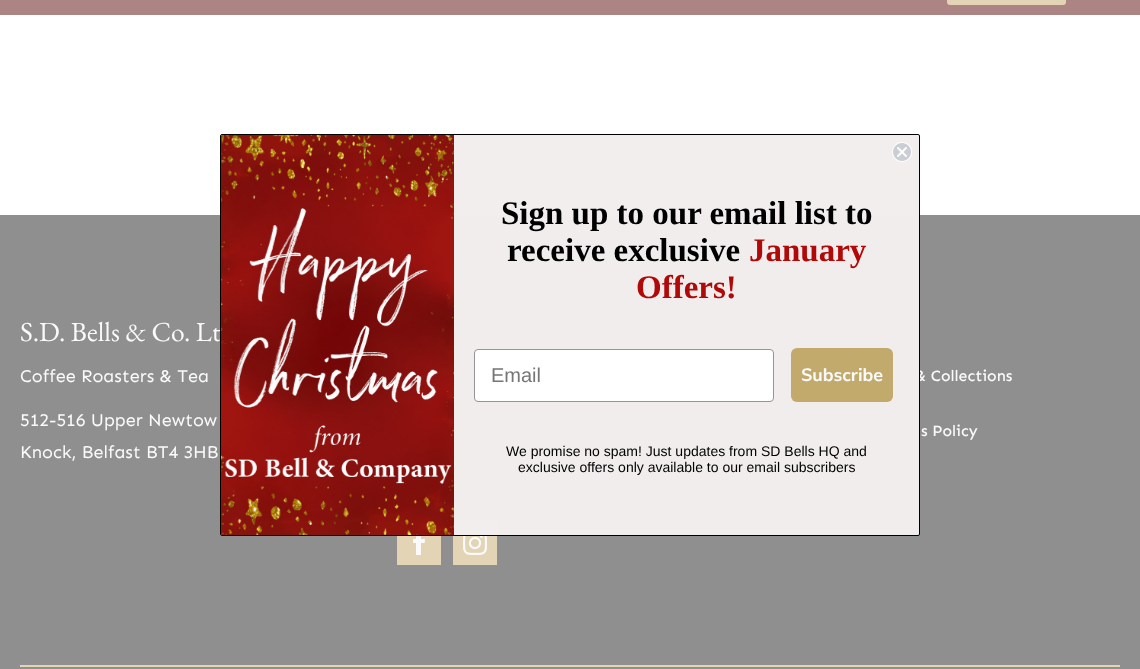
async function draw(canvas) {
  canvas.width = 1140;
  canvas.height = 669;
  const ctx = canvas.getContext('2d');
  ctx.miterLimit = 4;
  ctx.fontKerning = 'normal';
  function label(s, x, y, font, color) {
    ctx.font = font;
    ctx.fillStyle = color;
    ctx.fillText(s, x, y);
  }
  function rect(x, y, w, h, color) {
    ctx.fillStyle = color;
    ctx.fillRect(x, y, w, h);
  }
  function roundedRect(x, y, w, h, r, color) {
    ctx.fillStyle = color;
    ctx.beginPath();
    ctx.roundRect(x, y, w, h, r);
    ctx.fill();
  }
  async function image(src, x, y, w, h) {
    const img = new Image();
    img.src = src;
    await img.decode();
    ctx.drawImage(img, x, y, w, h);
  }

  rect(0, 0, 1140, 669, '#fff');
  rect(0, 0, 1140, 15, '#ac8484');
  roundedRect(947, -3, 119, 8, 3, '#e2d4b5');
  rect(0, 215, 1140, 454, '#908f90');
  label('S.D. Bells & Co. Lt', 20, 341, '27.5px EB Garamond', '#fafafb');
  label('& Collections', 915, 381, '500 15.75px Sen', '#fafafb');
  rect(453, 521, 44, 44, '#e2d4b5');
  await image('assets/img4.png', 463, 531, 24, 24);
  ctx.fillStyle = '#f2eeeefc';
  ctx.beginPath();
  ctx.roundRect(220.5, 134.5, 699, 401, 1.5);
  ctx.fill();
  ctx.strokeStyle = '#000';
  ctx.stroke();
  await image('assets/img1.png', 892, 142, 20, 20);
  await image('assets/img2.png', 221, 135, 233, 400);
  label('Sign up to our email list to', 501, 224, 'bold 33px Liberation Serif', '#000');
  label('receive exclusive', 507, 261, 'bold 33px Liberation Serif', '#000');
  label('January', 749, 261, 'bold 33px Liberation Serif', '#b10808');
  label('Offers!', 636, 298, 'bold 33px Liberation Serif', '#b10808');
  ctx.fillStyle = '#fff';
  ctx.beginPath();
  ctx.roundRect(474.5, 349.5, 299, 52, 3.5);
  ctx.fill();
  ctx.strokeStyle = '#949596';
  ctx.stroke();
  label('Email', 491, 382, '20px Liberation Sans', '#767676');
  roundedRect(791, 348, 102, 54, 6, '#c2aa6c');
  label('Subscribe', 801, 381, 'bold 18px Nunito Sans', '#fafafb');
  label('We promise no spam! Just updates from SD Bells HQ and', 506, 456, '14px Liberation Sans', '#000');
  label('exclusive offers only available to our email subscribers', 518, 472, '14px Liberation Sans', '#000');
  label('Coffee Roasters & Tea', 20, 382, '18px Sen', '#fafafb');
  label('512-516 Upper Newtow', 20, 426, '18px Sen', '#fafafb');
  label('Knock, Belfast BT4 3HB', 20, 458, '18px Sen', '#fafafb');
  label('s Policy', 921, 436, '500 15.75px Sen', '#fafafb');
  rect(397, 536, 44, 29, '#e2d4b5');
  await image('assets/img3.png', 413, 536, 12, 19);
  rect(20, 665, 1100, 2, '#e2d4b5');
}

draw(document.querySelector('canvas'));
